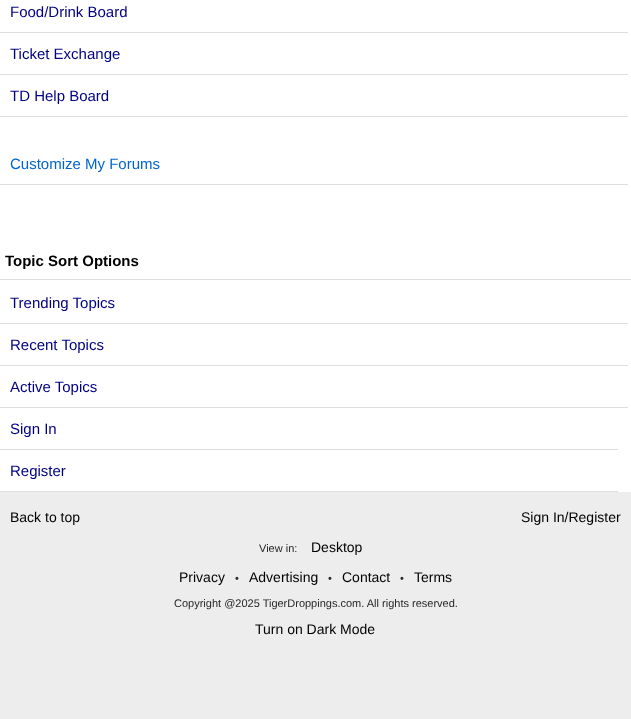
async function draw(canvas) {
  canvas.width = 631;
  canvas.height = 719;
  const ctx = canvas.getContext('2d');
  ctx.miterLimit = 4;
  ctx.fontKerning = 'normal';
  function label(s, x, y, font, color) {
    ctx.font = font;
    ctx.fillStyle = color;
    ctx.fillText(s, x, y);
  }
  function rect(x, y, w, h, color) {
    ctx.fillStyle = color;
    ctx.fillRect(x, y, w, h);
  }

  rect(0, 0, 631, 719, '#fff');
  rect(0, 32, 628, 1, '#dedede');
  label('Food/Drink Board', 10, 17, '15px Liberation Sans', '#000080');
  rect(0, 74, 628, 1, '#dedede');
  label('Ticket Exchange', 10, 59, '15px Liberation Sans', '#000080');
  rect(0, 116, 628, 1, '#dedede');
  label('TD Help Board', 10, 101, '15px Liberation Sans', '#000080');
  rect(0, 184, 628, 1, '#dedede');
  label('Customize My Forums', 10, 169, '15px Liberation Sans', '#06c');
  rect(0, 279, 631, 1, '#dedede');
  label('Topic Sort Options', 5, 266, 'bold 15px Liberation Sans', '#000');
  rect(0, 323, 628, 1, '#dedede');
  label('Trending Topics', 10, 308, '15px Liberation Sans', '#000080');
  rect(0, 365, 628, 1, '#dedede');
  label('Recent Topics', 10, 350, '15px Liberation Sans', '#000080');
  rect(0, 407, 628, 1, '#dedede');
  label('Active Topics', 10, 392, '15px Liberation Sans', '#000080');
  rect(0, 449, 618, 1, '#dedede');
  label('Sign In', 10, 434, '15px Liberation Sans', '#000080');
  rect(0, 491, 618, 1, '#dedede');
  label('Register', 10, 476, '15px Liberation Sans', '#000080');
  rect(0, 492, 631, 227, '#ededed');
  label('Back to top', 10, 522, '14px Liberation Sans', '#000');
  label('Sign In/Register', 521, 522, '14px Liberation Sans', '#000');
  label('View in:', 259, 552, '11px Liberation Sans', '#262626');
  label('Desktop', 311, 552, '14px Liberation Sans', '#000');
  label('Privacy', 179, 582, '14px Liberation Sans', '#000');
  label('•', 235, 582, '11px Liberation Sans', '#262626');
  label('Advertising', 249, 582, '14px Liberation Sans', '#000');
  label('•', 328, 582, '11px Liberation Sans', '#262626');
  label('Contact', 342, 582, '14px Liberation Sans', '#000');
  label('•', 400, 582, '11px Liberation Sans', '#262626');
  label('Terms', 414, 582, '14px Liberation Sans', '#000');
  label('Copyright @2025 TigerDroppings.com. All rights reserved.', 174, 607, '11px Liberation Sans', '#262626');
  label('Turn on Dark Mode', 255, 634, '14px Liberation Sans', '#000');
}

draw(document.querySelector('canvas'));
